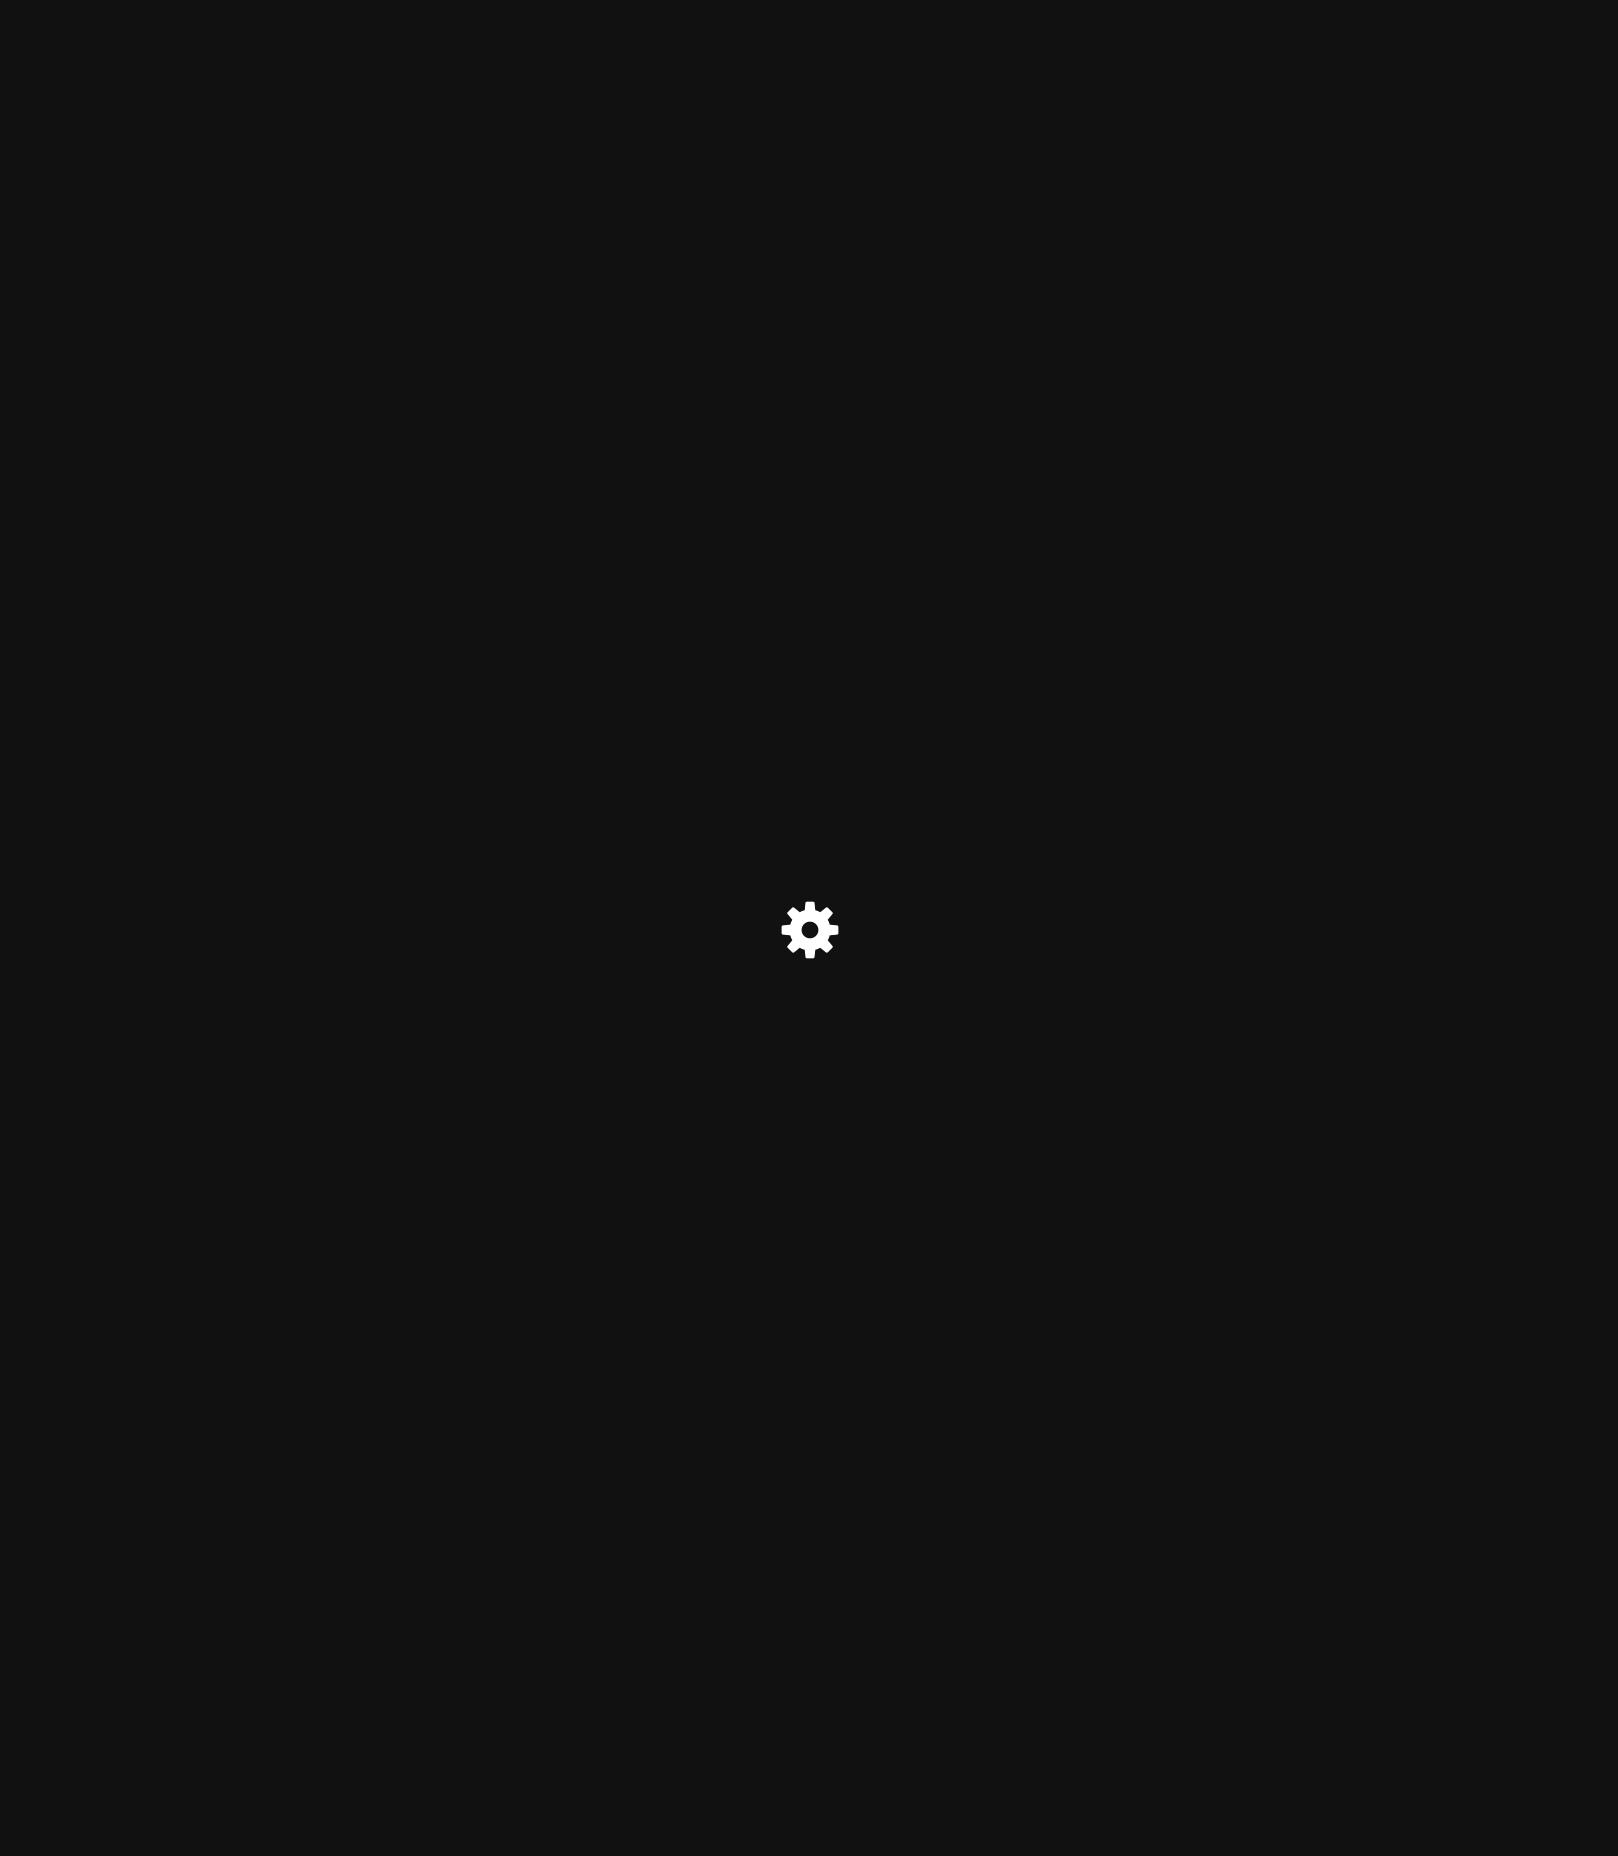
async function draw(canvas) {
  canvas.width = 1618;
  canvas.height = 1856;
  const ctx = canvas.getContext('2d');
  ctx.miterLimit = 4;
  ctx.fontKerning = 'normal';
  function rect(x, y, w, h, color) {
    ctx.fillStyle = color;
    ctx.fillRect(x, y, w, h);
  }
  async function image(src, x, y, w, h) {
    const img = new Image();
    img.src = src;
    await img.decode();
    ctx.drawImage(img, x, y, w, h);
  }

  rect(0, 0, 1618, 1856, '#111');
  await image('assets/img1.png', 781, 901, 58, 58);
}

draw(document.querySelector('canvas'));
